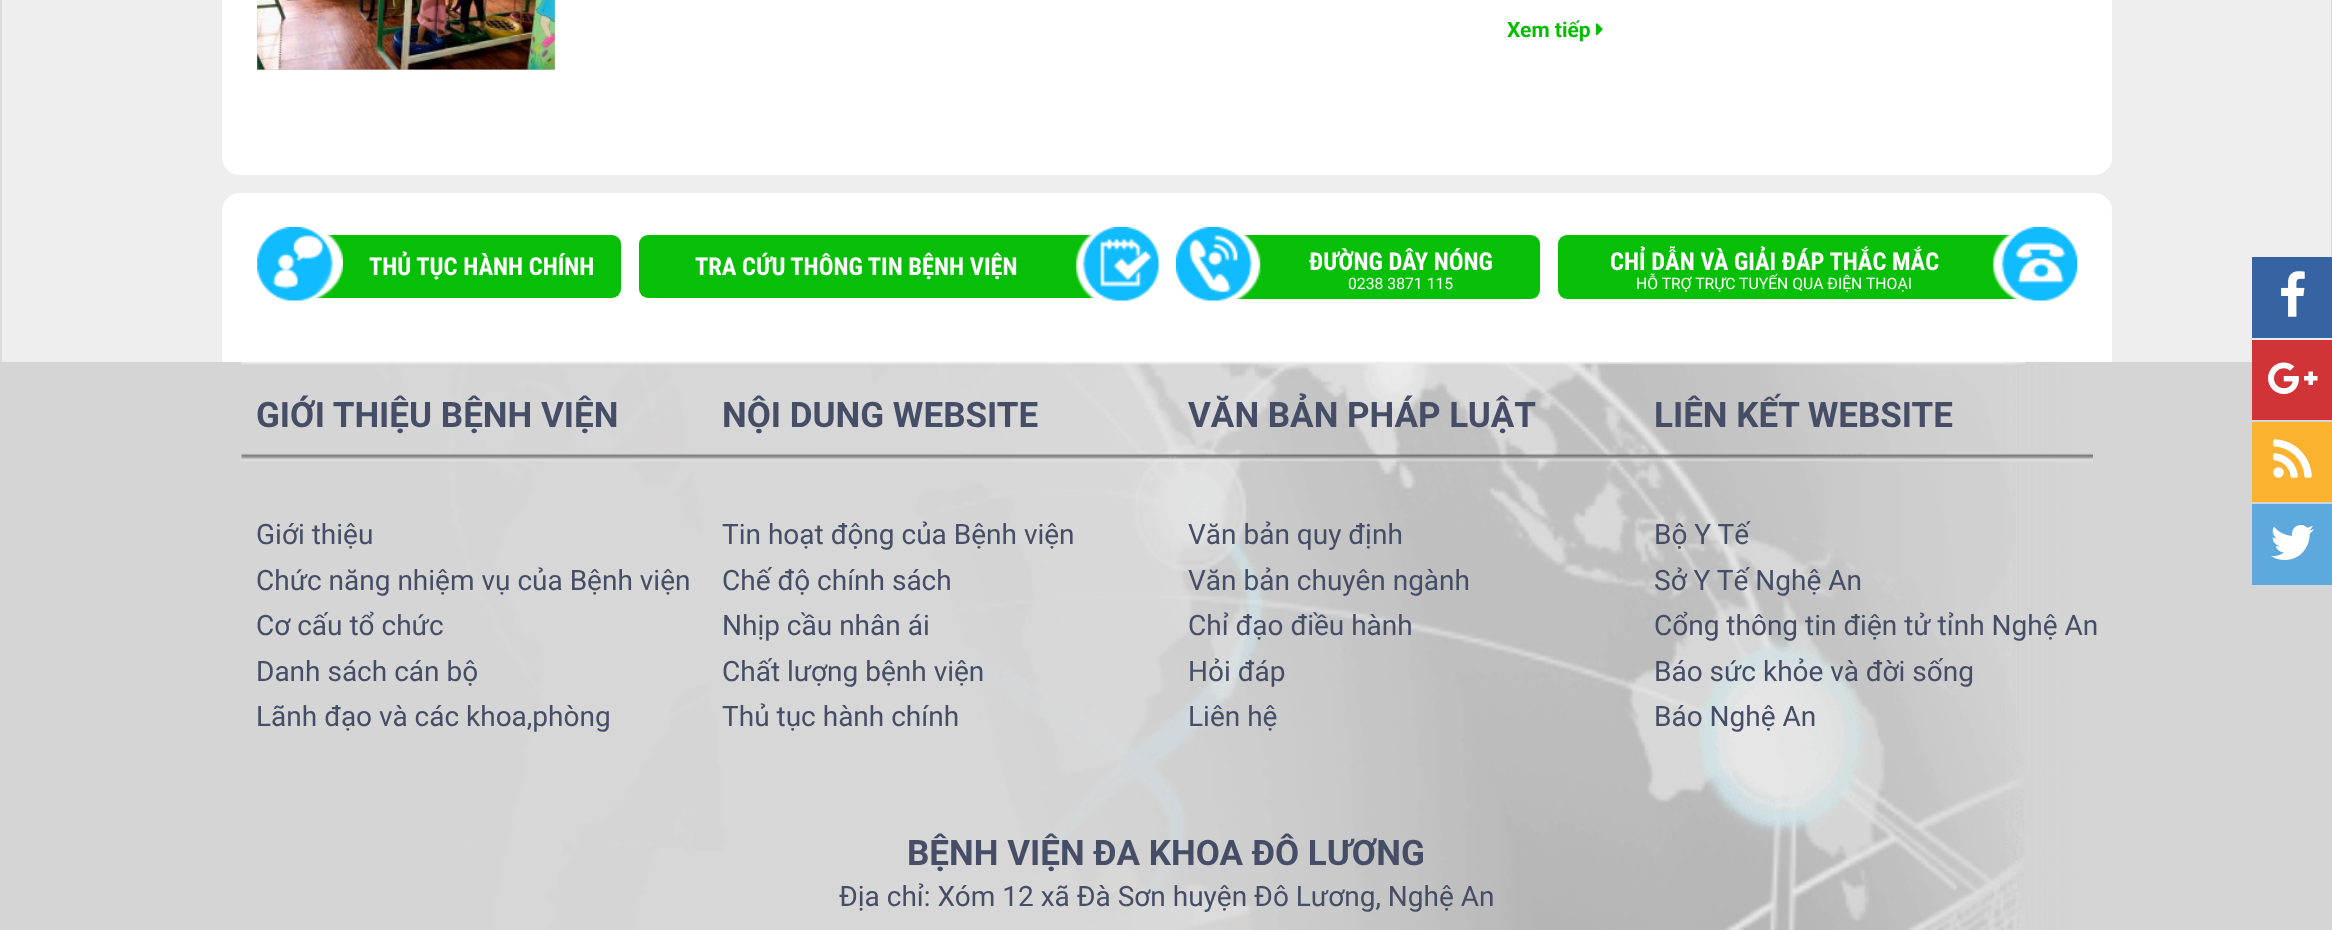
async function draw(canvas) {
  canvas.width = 2332;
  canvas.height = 930;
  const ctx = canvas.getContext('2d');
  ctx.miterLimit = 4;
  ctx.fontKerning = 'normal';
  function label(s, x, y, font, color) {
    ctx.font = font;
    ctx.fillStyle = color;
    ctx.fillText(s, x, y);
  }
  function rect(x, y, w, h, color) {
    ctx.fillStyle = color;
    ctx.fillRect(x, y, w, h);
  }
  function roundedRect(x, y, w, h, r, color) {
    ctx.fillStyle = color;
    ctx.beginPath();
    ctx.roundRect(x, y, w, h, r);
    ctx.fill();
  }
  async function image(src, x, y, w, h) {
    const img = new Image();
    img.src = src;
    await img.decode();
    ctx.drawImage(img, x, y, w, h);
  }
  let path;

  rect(0, 0, 2332, 930, '#dcdcdc');
  rect(2, 0, 2329, 362, '#eee');
  ctx.fillStyle = '#fff';
  path = new Path2D('M222-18H2112V157C2112 167 2104 175 2094 175H240C230 175 222 167 222 157Z');
  ctx.fill(path);
  rect(257, 0, 298, 70, '#ccc');
  await image('assets/img1.png', 257, 0, 298, 70);
  label('Xem tiếp', 1507, 37, 'bold 21px Roboto', '#06be04');
  await image('assets/img2.png', 1596, 23, 7, 13);
  ctx.fillStyle = '#fff';
  ctx.beginPath();
  ctx.roundRect(222, 193, 1890, 169, [18, 18, 0, 0]);
  ctx.fill();
  roundedRect(292, 235, 329, 63, 9, '#07bf07');
  await image('assets/img3.png', 257, 227, 86, 74);
  label('THỦ TỤC HÀNH CHÍNH', 369, 275, 'bold 24.5px Roboto Condensed', '#fff');
  roundedRect(639, 235, 485, 63, 9, '#07bf07');
  label('TRA CỨU THÔNG TIN BỆNH VIỆN', 695, 275, 'bold 24.5px Roboto Condensed', '#fff');
  await image('assets/img4.png', 1075, 227, 84, 74);
  roundedRect(1211, 235, 329, 64, 9, '#07bf07');
  await image('assets/img5.png', 1176, 227, 85, 74);
  label('ĐƯỜNG DÂY NÓNG', 1309, 270, 'bold 24.5px Roboto Condensed', '#fff');
  label('0238 3871 115', 1348, 289, '15.75px Roboto', '#fff');
  roundedRect(1558, 235, 484, 64, 9, '#07bf07');
  label('CHỈ DẪN VÀ GIẢI ĐÁP THẮC MẮC', 1610, 270, 'bold 24.5px Roboto Condensed', '#fff');
  label('HỖ TRỢ TRỰC TUYẾN QUA ĐIỆN THOẠI', 1636, 289, '15.75px Roboto', '#fff');
  await image('assets/img6.png', 1992, 227, 86, 74);
  rect(0, 362, 2332, 568, '#d5d5d5');
  await image('assets/img7.png', 241, 361, 1852, 569);
  label('GIỚI THIỆU BỆNH VIỆN', 256, 427, 'bold 35px Roboto', '#464d66');
  label('Giới thiệu', 256, 544, '28px Roboto', '#464d66');
  label('Chức năng nhiệm vụ của Bệnh viện', 256, 590, '28px Roboto', '#464d66');
  label('Cơ cấu tổ chức', 256, 635, '28px Roboto', '#464d66');
  label('Danh sách cán bộ', 256, 681, '28px Roboto', '#464d66');
  label('Lãnh đạo và các khoa,phòng', 256, 726, '28px Roboto', '#464d66');
  label('NỘI DUNG WEBSITE', 722, 427, 'bold 35px Roboto', '#464d66');
  label('Tin hoạt động của Bệnh viện', 722, 544, '28px Roboto', '#464d66');
  label('Chế độ chính sách', 722, 590, '28px Roboto', '#464d66');
  label('Nhịp cầu nhân ái', 722, 635, '28px Roboto', '#464d66');
  label('Chất lượng bệnh viện', 722, 681, '28px Roboto', '#464d66');
  label('Thủ tục hành chính', 722, 726, '28px Roboto', '#464d66');
  label('VĂN BẢN PHÁP LUẬT', 1188, 427, 'bold 35px Roboto', '#464d66');
  label('Văn bản quy định', 1188, 544, '28px Roboto', '#464d66');
  label('Văn bản chuyên ngành', 1188, 590, '28px Roboto', '#464d66');
  label('Chỉ đạo điều hành', 1188, 635, '28px Roboto', '#464d66');
  label('Hỏi đáp', 1188, 681, '28px Roboto', '#464d66');
  label('Liên hệ', 1188, 726, '28px Roboto', '#464d66');
  label('LIÊN KẾT WEBSITE', 1654, 427, 'bold 35px Roboto', '#464d66');
  label('Bộ Y Tế', 1654, 544, '28px Roboto', '#464d66');
  label('Sở Y Tế Nghệ An', 1654, 590, '28px Roboto', '#464d66');
  label('Cổng thông tin điện tử tỉnh Nghệ An', 1654, 635, '28px Roboto', '#464d66');
  label('Báo sức khỏe và đời sống', 1654, 681, '28px Roboto', '#464d66');
  label('Báo Nghệ An', 1654, 726, '28px Roboto', '#464d66');
  label('BỆNH VIỆN ĐA KHOA ĐÔ LƯƠNG', 907, 865, 'bold 35px Roboto', '#464d66');
  label('Địa chỉ: Xóm 12 xã Đà Sơn huyện Đô Lương, Nghệ An', 839, 906, '28px Roboto', '#464d66');
  rect(2252, 257, 80, 81, '#3664a2');
  await image('assets/img8.png', 2281, 271, 24, 46);
  rect(2252, 340, 80, 80, '#d23337');
  await image('assets/img9.png', 2268, 362, 50, 32);
  rect(2252, 422, 80, 80, '#fbb22f');
  await image('assets/img10.png', 2273, 439, 39, 39);
  rect(2252, 504, 80, 81, '#5da9dd');
  await image('assets/img11.png', 2271, 525, 43, 35);
}

draw(document.querySelector('canvas'));
